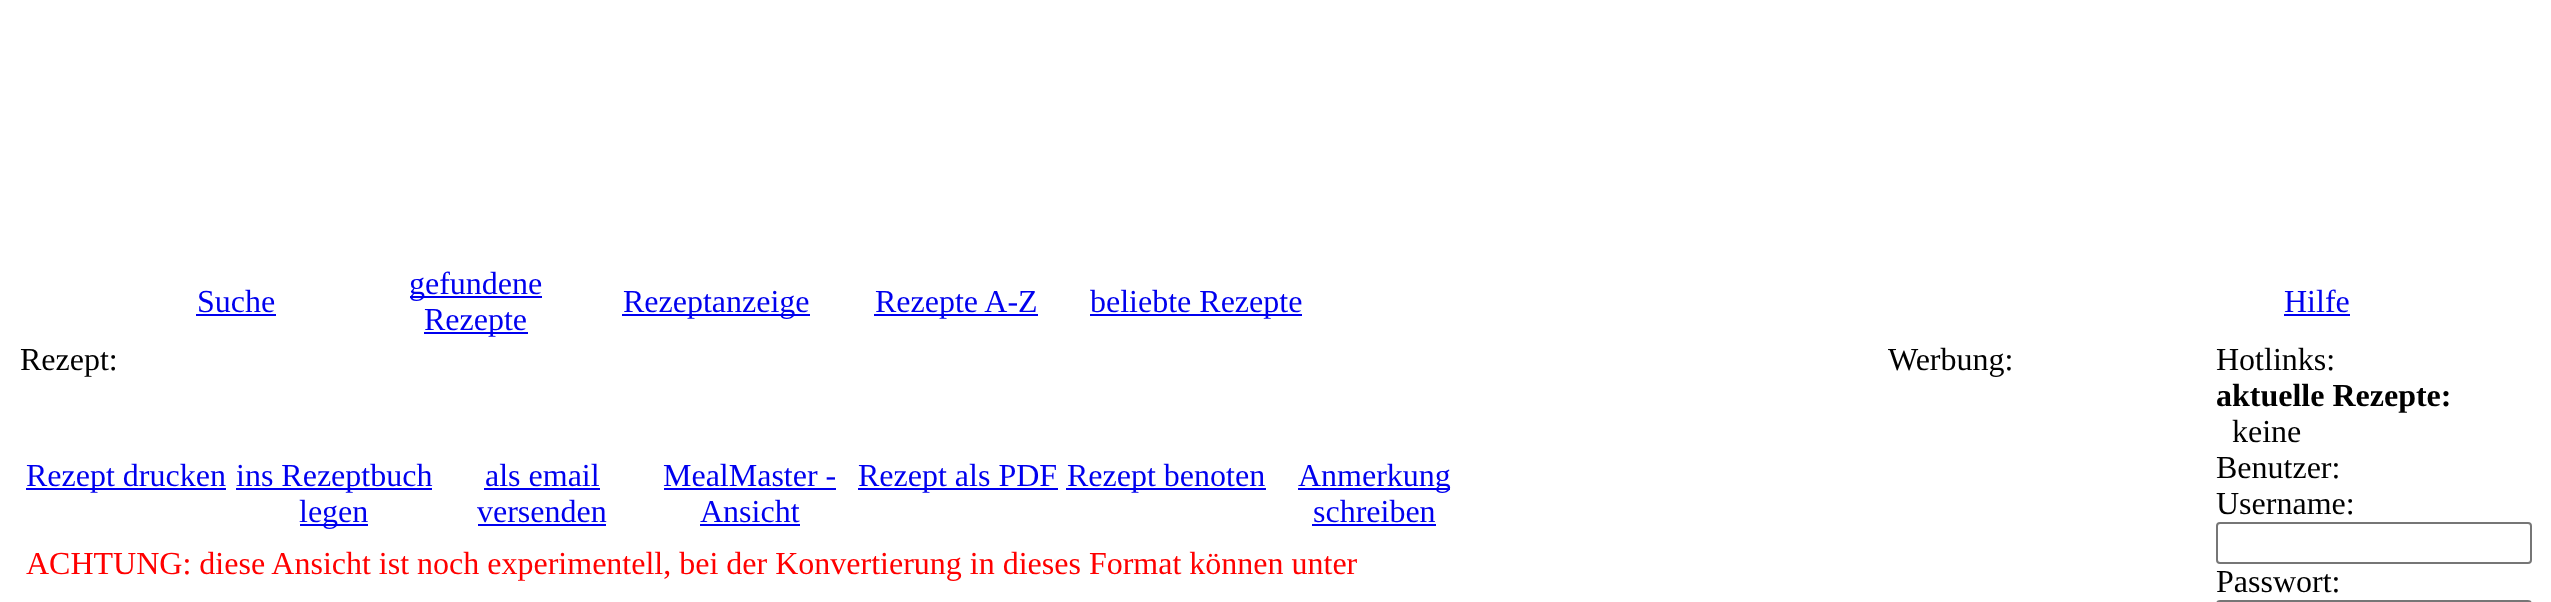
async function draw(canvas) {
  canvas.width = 2551;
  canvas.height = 602;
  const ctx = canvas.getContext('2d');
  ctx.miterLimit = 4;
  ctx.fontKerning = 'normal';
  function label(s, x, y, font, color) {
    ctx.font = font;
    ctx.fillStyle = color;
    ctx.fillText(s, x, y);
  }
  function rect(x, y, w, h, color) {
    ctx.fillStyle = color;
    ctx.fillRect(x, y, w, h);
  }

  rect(0, 0, 2551, 602, '#fff');
  label('Suche', 197, 312, '32px Liberation Serif', '#00e');
  rect(196, 314, 80, 2, '#00e');
  rect(410, 296, 132, 2, '#00e');
  label('gefundene', 409, 294, '32px Liberation Serif', '#00e');
  rect(424, 332, 104, 2, '#00e');
  label('Rezepte', 424, 330, '32px Liberation Serif', '#00e');
  rect(622, 314, 188, 2, '#00e');
  label('Rezeptanzeige', 623, 312, '32px Liberation Serif', '#00e');
  rect(874, 314, 164, 2, '#00e');
  label('Rezepte A-Z', 875, 312, '32px Liberation Serif', '#00e');
  rect(1090, 314, 212, 2, '#00e');
  label('beliebte Rezepte', 1090, 312, '32px Liberation Serif', '#00e');
  label('Hilfe', 2284, 312, '32px Liberation Serif', '#00e');
  rect(2284, 314, 66, 2, '#00e');
  label('Rezept:', 20, 370, '32px Liberation Serif', '#000');
  rect(26, 488, 200, 2, '#00e');
  label('Rezept drucken', 26, 486, '32px Liberation Serif', '#00e');
  rect(236, 488, 196, 2, '#00e');
  label('ins Rezeptbuch', 236, 486, '32px Liberation Serif', '#00e');
  rect(300, 524, 68, 2, '#00e');
  label('legen', 299, 522, '32px Liberation Serif', '#00e');
  label('als email', 485, 486, '32px Liberation Serif', '#00e');
  rect(484, 488, 116, 2, '#00e');
  label('versenden', 477, 522, '32px Liberation Serif', '#00e');
  rect(478, 524, 128, 2, '#00e');
  label('MealMaster -', 663, 486, '32px Liberation Serif', '#00e');
  rect(664, 488, 172, 2, '#00e');
  label('Ansicht', 700, 522, '32px Liberation Serif', '#00e');
  rect(700, 524, 100, 2, '#00e');
  rect(858, 488, 200, 2, '#00e');
  label('Rezept als PDF', 858, 486, '32px Liberation Serif', '#00e');
  rect(1066, 488, 200, 2, '#00e');
  label('Rezept benoten', 1067, 486, '32px Liberation Serif', '#00e');
  rect(1298, 488, 152, 2, '#00e');
  label('Anmerkung', 1298, 486, '32px Liberation Serif', '#00e');
  label('schreiben', 1313, 522, '32px Liberation Serif', '#00e');
  rect(1312, 524, 124, 2, '#00e');
  label('ACHTUNG: diese Ansicht ist noch experimentell, bei der Konvertierung in dieses Format können unter', 26, 574, '32px Liberation Serif', '#f00');
  label('Werbung:', 1888, 370, '32px Liberation Serif', '#000');
  label('Hotlinks:', 2216, 370, '32px Liberation Serif', '#000');
  label('aktuelle Rezepte:', 2216, 406, 'bold 32px Liberation Serif', '#000');
  label('keine', 2232, 442, '32px Liberation Serif', '#000');
  label('Benutzer:', 2216, 478, '32px Liberation Serif', '#000');
  label('Username:', 2216, 514, '32px Liberation Serif', '#000');
  ctx.beginPath();
  ctx.roundRect(2217, 523, 314, 40, 3);
  ctx.strokeStyle = '#767676';
  ctx.lineWidth = 2;
  ctx.stroke();
  label('Passwort:', 2216, 592, '32px Liberation Serif', '#000');
  ctx.beginPath();
  ctx.roundRect(2217, 601, 314, 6, 3);
  ctx.stroke();
}

draw(document.querySelector('canvas'));
